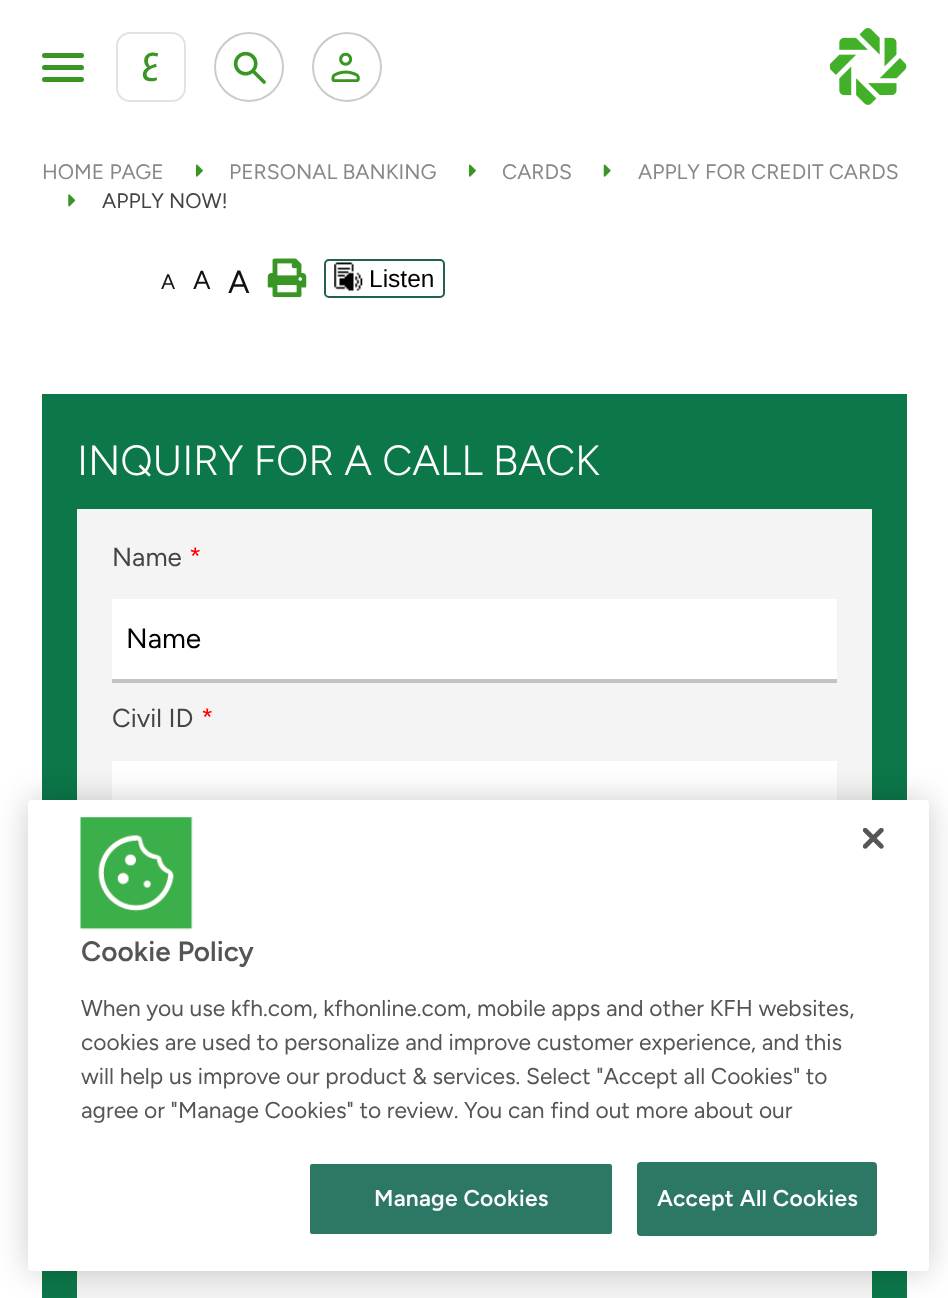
async function draw(canvas) {
  canvas.width = 948;
  canvas.height = 1298;
  const ctx = canvas.getContext('2d');
  ctx.miterLimit = 4;
  ctx.fontKerning = 'normal';
  function label(s, x, y, font, color) {
    ctx.font = font;
    ctx.fillStyle = color;
    ctx.fillText(s, x, y);
  }
  function rect(x, y, w, h, color) {
    ctx.fillStyle = color;
    ctx.fillRect(x, y, w, h);
  }
  function roundedRect(x, y, w, h, r, color) {
    ctx.fillStyle = color;
    ctx.beginPath();
    ctx.roundRect(x, y, w, h, r);
    ctx.fill();
  }
  async function image(src, x, y, w, h) {
    const img = new Image();
    img.src = src;
    await img.decode();
    ctx.drawImage(img, x, y, w, h);
  }
  let path;

  rect(0, 0, 948, 1298, '#fff');
  roundedRect(42, 53, 42, 5, 2.5, '#399624');
  roundedRect(42, 65, 42, 5, 2.5, '#399624');
  roundedRect(42, 77, 42, 5, 2.5, '#399624');
  ctx.beginPath();
  ctx.roundRect(117, 33, 68, 68, 13);
  ctx.strokeStyle = '#e3e3e3';
  ctx.lineWidth = 2;
  ctx.stroke();
  ctx.direction = 'rtl';
  label('ع', 160, 70, '500 35px Noto Kufi Arabic', '#399624');
  ctx.beginPath();
  ctx.arc(249, 67, 34, 0, 2 * Math.PI);
  ctx.strokeStyle = '#cccbcb';
  ctx.stroke();
  await image('assets/img1.png', 233, 51, 33, 33);
  ctx.beginPath();
  ctx.arc(347, 67, 34, 0, 2 * Math.PI);
  ctx.stroke();
  await image('assets/img2.png', 331, 53, 29, 29);
  await image('assets/img3.png', 830, 28, 77, 77);
  ctx.direction = 'ltr';
  label('HOME PAGE', 42, 179, '21px Figtree', '#888');
  await image('assets/img4.png', 196, 164, 7, 13);
  label('PERSONAL BANKING', 229, 179, '21px Figtree', '#888');
  await image('assets/img4.png', 469, 164, 7, 13);
  label('CARDS', 502, 179, '21px Figtree', '#888');
  await image('assets/img5.png', 603, 164, 8, 13);
  label('APPLY FOR CREDIT CARDS', 638, 179, '21px Figtree', '#888');
  await image('assets/img6.png', 68, 194, 8, 13);
  label('APPLY NOW!', 102, 208, '21px Figtree', '#444');
  label('A', 161, 289, '21px Figtree', '#111');
  label('A', 193, 289, '26px Figtree', '#111');
  label('A', 228, 293, '32px Figtree', '#111');
  await image('assets/img7.png', 267, 258, 40, 40);
  ctx.beginPath();
  ctx.roundRect(325, 260, 119, 37, 4);
  ctx.strokeStyle = '#24604f';
  ctx.stroke();
  await image('assets/img8.png', 334, 262, 29, 29);
  label('Listen', 369, 287, '24.5px Liberation Sans', '#000');
  rect(42, 394, 865, 904, '#0c7749');
  ctx.letterSpacing = '-0.2px';
  label('INQUIRY FOR A CALL BACK', 77, 475, '300 42px Figtree', '#fff');
  rect(77, 509, 795, 789, '#f4f4f4');
  ctx.letterSpacing = '0px';
  label('Name', 112, 566, '26px Figtree', '#444');
  label('*', 189, 566, '26px Figtree', '#f00');
  ctx.fillStyle = '#c3c3c3';
  path = new Path2D('M112 679V683H837V602H836V679Z');
  ctx.fill(path);
  rect(112, 599, 725, 80, '#fff');
  label('Name', 126, 648, '28px Figtree', '#000');
  label('Civil ID', 112, 727, '26px Figtree', '#444');
  label('*', 201, 727, '26px Figtree', '#f00');
  rect(112, 761, 725, 39, '#fff');
  ctx.fillStyle = '#00000033';
  ctx.filter = 'blur(16px)';
  ctx.beginPath();
  ctx.roundRect(28, 800, 901, 471, 4);
  ctx.fill();
  ctx.filter = 'none';
  roundedRect(28, 800, 901, 471, 4, '#fff');
  await image('assets/img9.png', 863, 828, 21, 21);
  label('Cookie Policy', 81, 961, '600 28px Figtree', '#555');
  label('When you use kfh.com, kfhonline.com, mobile apps and other KFH websites,', 81, 1016, '22.75px Figtree', '#555');
  label('cookies are used to personalize and improve customer experience, and this', 81, 1050, '22.75px Figtree', '#555');
  label('will help us improve our product & services. Select "Accept all Cookies" to', 81, 1084, '22.75px Figtree', '#555');
  label('agree or "Manage Cookies" to review. You can find out more about our', 81, 1118, '22.75px Figtree', '#555');
  await image('assets/img10.png', 80, 817, 113, 113);
  ctx.fillStyle = '#2d7864';
  ctx.beginPath();
  ctx.roundRect(309, 1163, 304, 72, 3);
  ctx.fill();
  ctx.strokeStyle = '#fff';
  ctx.stroke();
  ctx.letterSpacing = '0.25px';
  label('Manage Cookies', 374, 1206, '600 22.75px Figtree', '#fff');
  ctx.fillStyle = '#2d7864';
  ctx.beginPath();
  ctx.roundRect(638, 1163, 238, 72, 3);
  ctx.fill();
  ctx.strokeStyle = '#2d7864';
  ctx.stroke();
  label('Accept All Cookies', 657, 1206, '600 22.75px Figtree', '#fff');
}

draw(document.querySelector('canvas'));
